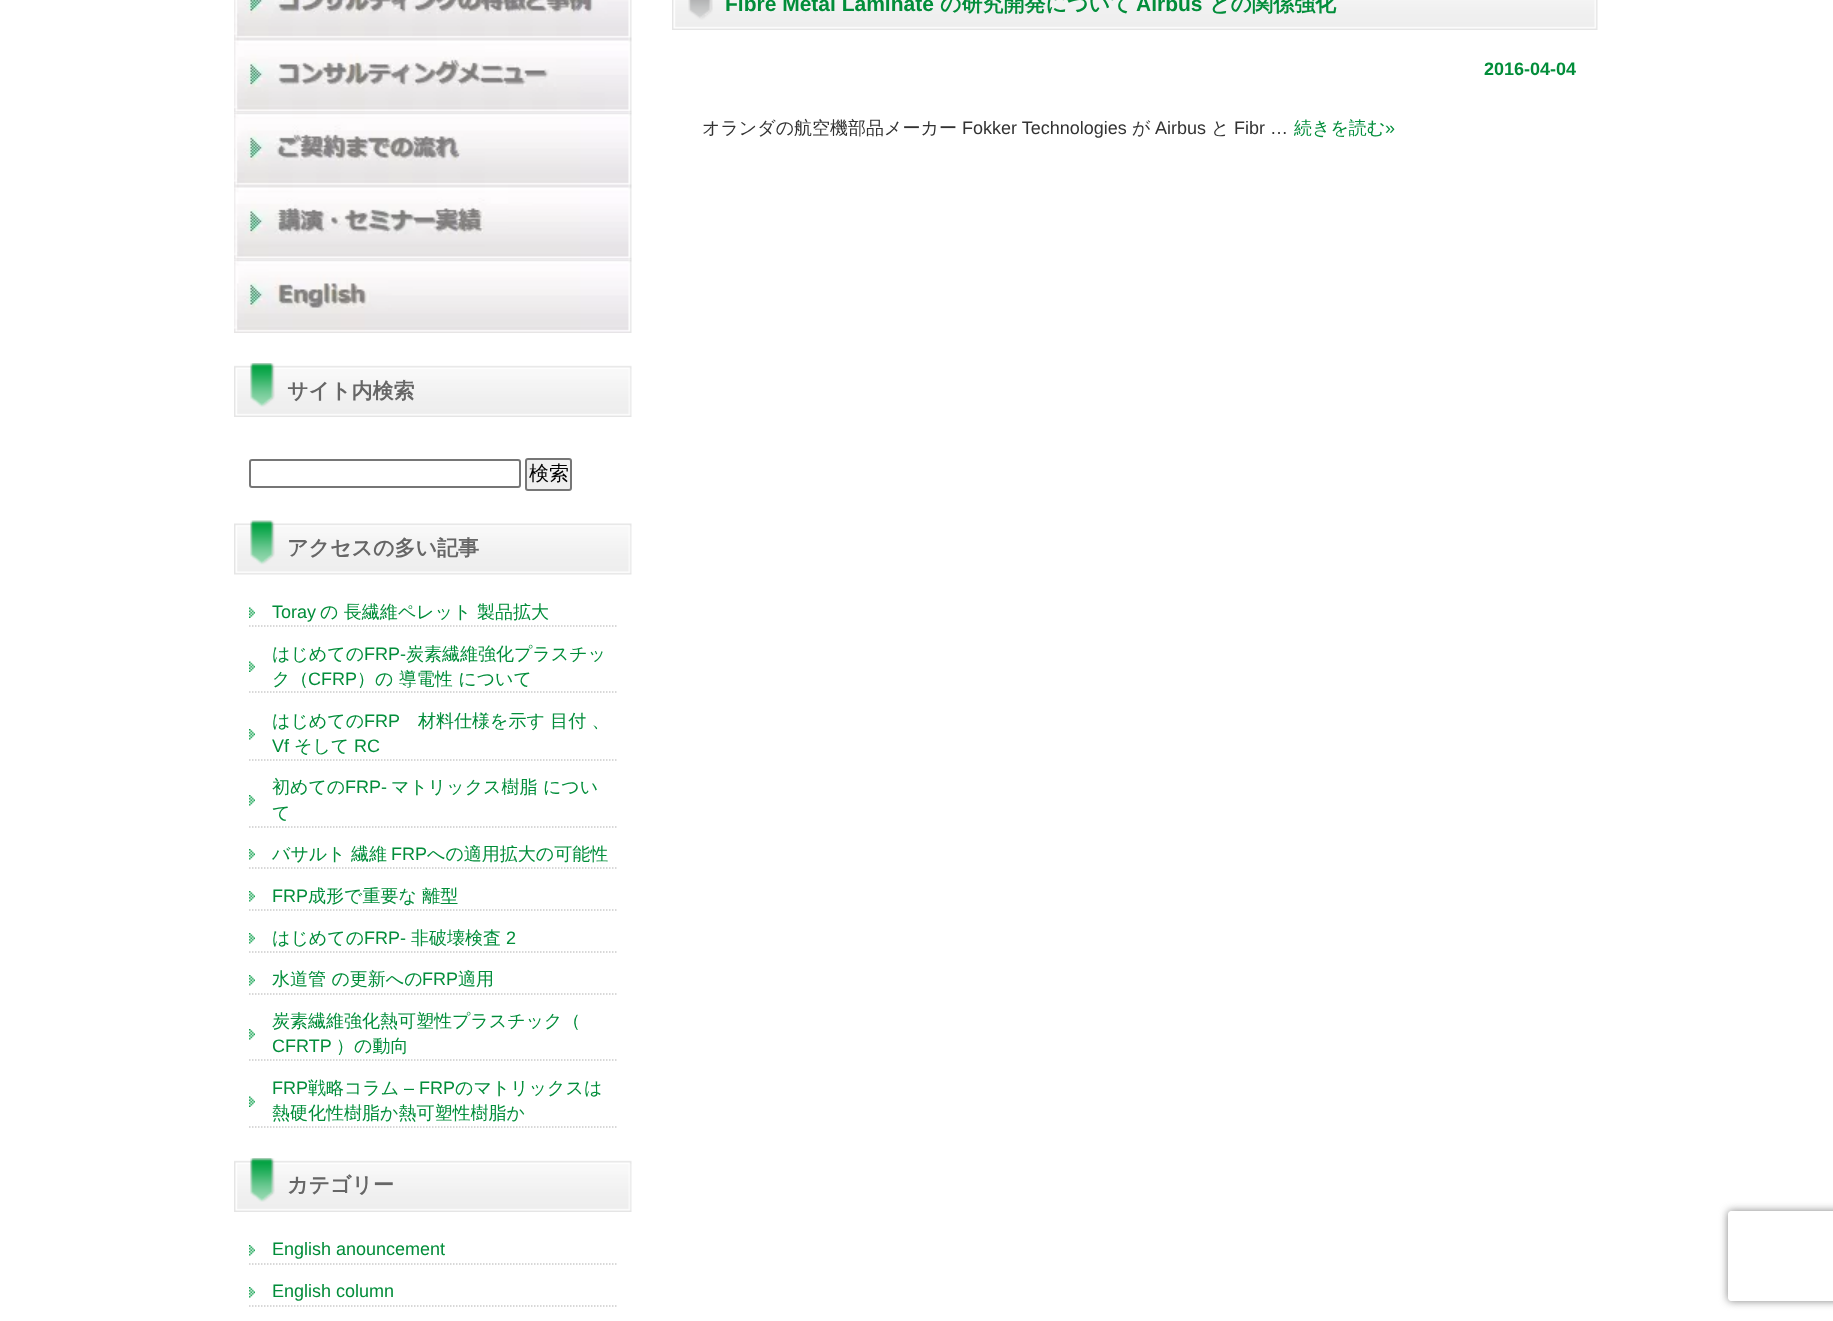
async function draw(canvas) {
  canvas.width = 1833;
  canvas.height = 1321;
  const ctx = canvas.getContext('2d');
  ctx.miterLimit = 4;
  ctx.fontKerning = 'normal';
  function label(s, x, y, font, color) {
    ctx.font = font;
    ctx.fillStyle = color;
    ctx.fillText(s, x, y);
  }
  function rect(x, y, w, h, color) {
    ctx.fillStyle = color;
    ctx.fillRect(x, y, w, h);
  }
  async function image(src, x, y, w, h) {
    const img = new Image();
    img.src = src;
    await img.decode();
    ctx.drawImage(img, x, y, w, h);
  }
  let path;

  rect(0, 0, 1833, 1321, '#fff');
  await image('assets/img1.png', 672, 0, 926, 30);
  label('Fibre Metal Laminate', 725, 11, 'bold 21px Liberation Sans', '#028d3a');
  label('の研究開発について', 940, 11, 'bold 21px WenQuanYi Zen Hei', '#028d3a');
  label('Airbus', 1136, 11, 'bold 21px Liberation Sans', '#028d3a');
  label('との関係強化', 1209, 11, 'bold 21px WenQuanYi Zen Hei', '#028d3a');
  label('2016-04-04', 1484, 75, 'bold 18px Liberation Sans', '#028d3a');
  label('オランダの航空機部品メーカー', 702, 134, '500 18px WenQuanYi Zen Hei', '#333');
  label('Fokker Technologies', 962, 134, '18px Liberation Sans', '#333');
  label('が', 1132, 134, '500 18px WenQuanYi Zen Hei', '#333');
  label('Airbus', 1155, 134, '18px Liberation Sans', '#333');
  label('と', 1211, 134, '500 18px WenQuanYi Zen Hei', '#333');
  label('Fibr …', 1234, 134, '18px Liberation Sans', '#333');
  label('続きを読む', 1294, 134, '500 18px WenQuanYi Zen Hei', '#028d3a');
  label('»', 1385, 134, '18px Liberation Sans', '#028d3a');
  await image('assets/img2.png', 234, 0, 398, 39);
  await image('assets/img3.png', 234, 39, 398, 74);
  await image('assets/img4.png', 234, 112, 398, 74);
  await image('assets/img5.png', 234, 186, 398, 74);
  await image('assets/img6.png', 234, 259, 398, 74);
  await image('assets/img7.png', 234, 363, 398, 54);
  label('サイト内検索', 287, 398, 'bold 21px WenQuanYi Zen Hei', '#666');
  ctx.beginPath();
  ctx.roundRect(250, 460, 270, 27, 2);
  ctx.strokeStyle = '#767676';
  ctx.lineWidth = 2;
  ctx.stroke();
  ctx.fillStyle = '#efefef';
  ctx.beginPath();
  ctx.roundRect(526, 459, 45, 31, 2);
  ctx.fill();
  ctx.stroke();
  label('検索', 529, 480, '500 20px WenQuanYi Zen Hei', '#000');
  await image('assets/img8.png', 234, 520, 398, 55);
  label('アクセスの多い記事', 287, 555, 'bold 21px WenQuanYi Zen Hei', '#666');
  path = new Path2D('M249 626H616.5');
  ctx.strokeStyle = '#ccc';
  ctx.lineWidth = 1.5;
  ctx.setLineDash([1.5, 1.5]);
  ctx.stroke(path);
  await image('assets/img9.png', 249, 607, 6, 11);
  label('Toray', 272, 618, '18px Liberation Sans', '#028d3a');
  label('の 長繊維ペレット 製品拡大', 320, 618, '500 18px WenQuanYi Zen Hei', '#028d3a');
  path = new Path2D('M249 692H616.5');
  ctx.stroke(path);
  await image('assets/img9.png', 249, 661, 6, 11);
  label('はじめての', 272, 660, '500 18px WenQuanYi Zen Hei', '#028d3a');
  label('FRP-', 364, 660, '18px Liberation Sans', '#028d3a');
  label('炭素繊維強化プラスチッ', 406, 660, '500 18px WenQuanYi Zen Hei', '#028d3a');
  label('ク（', 272, 685, '500 18px WenQuanYi Zen Hei', '#028d3a');
  label('CFRP', 308, 685, '18px Liberation Sans', '#028d3a');
  label('）の 導電性 について', 357, 685, '500 18px WenQuanYi Zen Hei', '#028d3a');
  path = new Path2D('M249 760H616.5');
  ctx.stroke(path);
  await image('assets/img10.png', 249, 729, 6, 11);
  label('はじめての', 272, 727, '500 18px WenQuanYi Zen Hei', '#028d3a');
  label('FRP', 364, 727, '18px Liberation Sans', '#028d3a');
  label('材料仕様を示す 目付 、', 418, 727, '500 18px WenQuanYi Zen Hei', '#028d3a');
  label('Vf', 272, 752, '18px Liberation Sans', '#028d3a');
  label('そして', 294, 752, '500 18px WenQuanYi Zen Hei', '#028d3a');
  label('RC', 354, 752, '18px Liberation Sans', '#028d3a');
  path = new Path2D('M249 827H616.5');
  ctx.stroke(path);
  await image('assets/img10.png', 249, 795, 6, 11);
  label('初めての', 272, 793, '500 18px WenQuanYi Zen Hei', '#028d3a');
  label('FRP-', 345, 793, '18px Liberation Sans', '#028d3a');
  label('マトリックス樹脂 につい', 391, 793, '500 18px WenQuanYi Zen Hei', '#028d3a');
  label('て', 272, 819, '500 18px WenQuanYi Zen Hei', '#028d3a');
  path = new Path2D('M249 868H616.5');
  ctx.stroke(path);
  await image('assets/img10.png', 249, 849, 6, 11);
  label('バサルト 繊維', 272, 860, '500 18px WenQuanYi Zen Hei', '#028d3a');
  label('FRP', 391, 860, '18px Liberation Sans', '#028d3a');
  label('への適用拡大の可能性', 427, 860, '500 18px WenQuanYi Zen Hei', '#028d3a');
  path = new Path2D('M249 910H616.5');
  ctx.stroke(path);
  await image('assets/img10.png', 249, 891, 6, 11);
  label('FRP', 272, 902, '18px Liberation Sans', '#028d3a');
  label('成形で重要な 離型', 308, 902, '500 18px WenQuanYi Zen Hei', '#028d3a');
  path = new Path2D('M249 952H616.5');
  ctx.stroke(path);
  await image('assets/img10.png', 249, 933, 6, 11);
  label('はじめての', 272, 944, '500 18px WenQuanYi Zen Hei', '#028d3a');
  label('FRP-', 364, 944, '18px Liberation Sans', '#028d3a');
  label('非破壊検査', 411, 944, '500 18px WenQuanYi Zen Hei', '#028d3a');
  label('2', 506, 944, '18px Liberation Sans', '#028d3a');
  path = new Path2D('M249 994H616.5');
  ctx.stroke(path);
  await image('assets/img10.png', 249, 975, 6, 11);
  label('水道管 の更新への', 272, 985, '500 18px WenQuanYi Zen Hei', '#028d3a');
  label('FRP', 422, 985, '18px Liberation Sans', '#028d3a');
  label('適用', 458, 985, '500 18px WenQuanYi Zen Hei', '#028d3a');
  path = new Path2D('M249 1060H616.5');
  ctx.stroke(path);
  await image('assets/img10.png', 249, 1029, 6, 11);
  label('炭素繊維強化熱可塑性プラスチック（', 272, 1027, '500 18px WenQuanYi Zen Hei', '#028d3a');
  label('CFRTP', 272, 1052, '18px Liberation Sans', '#028d3a');
  label('）の動向', 336, 1052, '500 18px WenQuanYi Zen Hei', '#028d3a');
  path = new Path2D('M249 1127H616.5');
  ctx.stroke(path);
  await image('assets/img9.png', 249, 1096, 6, 11);
  label('FRP', 272, 1094, '18px Liberation Sans', '#028d3a');
  label('戦略コラム', 308, 1094, '500 18px WenQuanYi Zen Hei', '#028d3a');
  label('– FRP', 404, 1094, '18px Liberation Sans', '#028d3a');
  label('のマトリックスは', 455, 1094, '500 18px WenQuanYi Zen Hei', '#028d3a');
  label('熱硬化性樹脂か熱可塑性樹脂か', 272, 1119, '500 18px WenQuanYi Zen Hei', '#028d3a');
  await image('assets/img7.png', 234, 1158, 398, 54);
  label('カテゴリー', 287, 1192, 'bold 21px WenQuanYi Zen Hei', '#666');
  path = new Path2D('M249 1264H616.5');
  ctx.stroke(path);
  await image('assets/img10.png', 249, 1245, 6, 11);
  label('English anouncement', 272, 1255, '18px Liberation Sans', '#028d3a');
  path = new Path2D('M249 1306H616.5');
  ctx.stroke(path);
  await image('assets/img10.png', 249, 1287, 6, 11);
  label('English column', 272, 1297, '18px Liberation Sans', '#028d3a');
  ctx.save();
  path = new Path2D('M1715 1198H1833V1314H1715ZM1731 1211H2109C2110.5 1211 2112 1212.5 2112 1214V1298C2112 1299.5 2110.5 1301 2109 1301H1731C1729.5 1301 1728 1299.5 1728 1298V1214C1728 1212.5 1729.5 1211 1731 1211Z');
  ctx.clip(path, 'evenodd');
  ctx.fillStyle = '#808080';
  ctx.filter = 'blur(4px)';
  ctx.beginPath();
  ctx.roundRect(1728, 1211, 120, 90, 3);
  ctx.fill();
  ctx.filter = 'none';
  ctx.restore();
}

draw(document.querySelector('canvas'));
